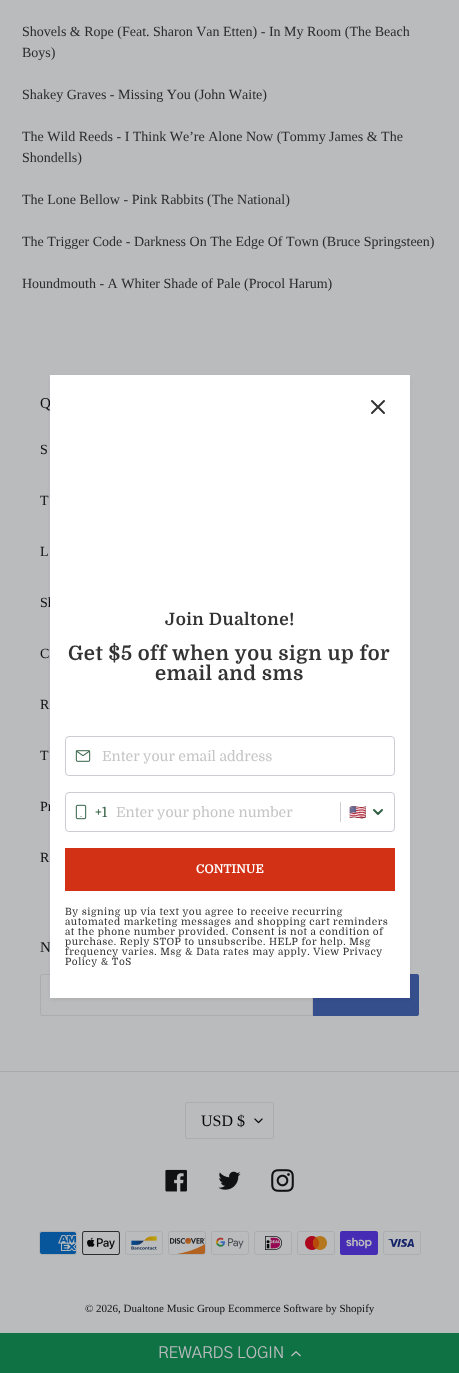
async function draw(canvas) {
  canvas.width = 459;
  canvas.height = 1373;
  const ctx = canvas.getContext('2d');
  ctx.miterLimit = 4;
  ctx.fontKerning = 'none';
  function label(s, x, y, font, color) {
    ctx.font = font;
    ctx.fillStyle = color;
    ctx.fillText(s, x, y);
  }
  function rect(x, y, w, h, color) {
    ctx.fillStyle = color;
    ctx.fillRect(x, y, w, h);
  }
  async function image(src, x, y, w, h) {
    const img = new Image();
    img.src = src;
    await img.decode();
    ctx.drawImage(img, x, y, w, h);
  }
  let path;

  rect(0, 0, 459, 1373, '#b9bbbd');
  label('Shovels & Rope (Feat. Sharon Van Etten) - In My Room (The Beach', 22, 36, '14px Liberation Serif', '#2b2b2d');
  label('Boys)', 22, 57, '14px Liberation Serif', '#2b2b2d');
  label('Shakey Graves - Missing You (John Waite)', 22, 99, '14px Liberation Serif', '#2b2b2d');
  label('The Wild Reeds - I Think We’re Alone Now (Tommy', 22, 141, '14px Liberation Serif', '#2b2b2d');
  label('James & The', 329, 141, '14px Liberation Serif', '#2b2b2d');
  label('Shondells)', 22, 162, '14px Liberation Serif', '#2b2b2d');
  label('The Lone Bellow - Pink Rabbits (The National)', 22, 204, '14px Liberation Serif', '#2b2b2d');
  label('The Trigger Code - Darkness On The Edge Of Town (Bruce Springsteen)', 22, 246, '14px Liberation Serif', '#2b2b2d');
  label('Houndmouth - A Whiter Shade of Pale (Procol Harum)', 22, 288, '14px Liberation Serif', '#2b2b2d');
  label('Q', 40, 408, '15px Liberation Serif', '#101113');
  label('S', 40, 454, '14px Liberation Serif', '#101113');
  label('T', 40, 505, '14px Liberation Serif', '#101113');
  label('L', 40, 556, '14px Liberation Serif', '#101113');
  label('Sh', 40, 607, '14px Liberation Serif', '#101113');
  label('C', 40, 658, '14px Liberation Serif', '#101113');
  label('R', 40, 709, '14px Liberation Serif', '#101113');
  label('T', 40, 760, '14px Liberation Serif', '#101113');
  label('Pr', 40, 811, '14px Liberation Serif', '#101113');
  label('R', 40, 862, '14px Liberation Serif', '#101113');
  label('N', 40, 952, '15px Liberation Serif', '#101113');
  ctx.beginPath();
  ctx.roundRect(40.5, 974.5, 272, 41, [1.5, 0, 0, 1.5]);
  ctx.strokeStyle = '#abadaf';
  ctx.stroke();
  ctx.fillStyle = '#354e8c';
  ctx.beginPath();
  ctx.roundRect(313, 974, 106, 42, [0, 2, 2, 0]);
  ctx.fill();
  rect(0, 1071, 459, 1, '#a8a9ab');
  await image('assets/img1.png', 254, 1118, 9, 6);
  ctx.beginPath();
  ctx.roundRect(185.5, 1102.5, 88, 36, 1.5);
  ctx.stroke();
  label('USD $', 201, 1126, '16px Liberation Serif', '#07080a');
  await image('assets/img2.png', 165, 1169, 22, 23);
  await image('assets/img3.png', 218, 1171, 23, 19);
  await image('assets/img4.png', 271, 1169, 23, 23);
  await image('assets/img5.png', 39, 1231, 38, 24);
  await image('assets/img6.png', 82, 1231, 38, 24);
  await image('assets/img7.png', 125, 1231, 38, 24);
  await image('assets/img8.png', 168, 1231, 38, 24);
  await image('assets/img9.png', 211, 1231, 38, 24);
  await image('assets/img10.png', 254, 1231, 38, 24);
  await image('assets/img11.png', 297, 1231, 38, 24);
  await image('assets/img12.png', 340, 1231, 38, 24);
  await image('assets/img13.png', 383, 1231, 38, 24);
  label('© 2026, Dualtone Music Group', 85, 1312, '11px Liberation Serif', '#101113');
  label('Ecommerce Software by Shopify', 228, 1312, '11px Liberation Serif', '#101113');
  ctx.fillStyle = '#1e26331a';
  ctx.filter = 'blur(2px)';
  ctx.beginPath();
  ctx.rect(51, 378, 358, 621);
  ctx.fill();
  ctx.filter = 'none';
  rect(50, 375, 360, 623, '#fff');
  path = new Path2D('M384 401L372 413M372 401L384 413');
  ctx.strokeStyle = '#333';
  ctx.lineWidth = 2;
  ctx.lineCap = 'round';
  ctx.lineJoin = 'round';
  ctx.stroke(path);
  ctx.letterSpacing = '0.5px';
  label('Join Dualtone!', 165, 625, 'bold 17px Domine', '#333');
  label('Get $5 off when you sign up for', 68, 660, 'bold 20px Domine', '#333');
  label('email and sms', 155, 680, 'bold 20px Domine', '#333');
  ctx.beginPath();
  ctx.roundRect(65.5, 736.5, 329, 39, 3.5);
  ctx.strokeStyle = '#cbcdd3';
  ctx.lineWidth = 1;
  ctx.lineJoin = 'miter';
  ctx.stroke();
  await image('assets/img14.png', 75, 750, 16, 12);
  ctx.letterSpacing = '0px';
  label('Enter your email address', 102, 761, '14px Domine', '#c5c5c5');
  ctx.beginPath();
  ctx.roundRect(65.5, 792.5, 329, 39, 3.5);
  ctx.stroke();
  await image('assets/img15.png', 75, 804, 12, 16);
  label('+1', 95, 817, '14px Domine', '#346146');
  label('Enter your phone number', 116, 817, '14px Domine', '#c5c5c5');
  rect(340, 802, 1, 20, '#cbcdd3');
  label('🇺🇸', 349, 817, '14px Noto Color Emoji', '#346146');
  path = new Path2D('M374 810L378 814L382 810');
  ctx.strokeStyle = '#346146';
  ctx.lineWidth = 2;
  ctx.lineJoin = 'round';
  ctx.stroke(path);
  rect(65, 848, 330, 43, '#d33115');
  label('CONTINUE', 196, 873, 'bold 12px Domine', '#fff');
  ctx.letterSpacing = '0.5px';
  label('By signing up via text you agree to receive recurring', 65, 915, '10px Domine', '#333');
  label('automated marketing messages and shopping cart reminders', 65, 925, '10px Domine', '#333');
  label('at the phone number provided. Consent is not a condition of', 65, 935, '10px Domine', '#333');
  label('purchase. Reply STOP to unsubscribe. HELP for help. Msg', 65, 945, '10px Domine', '#333');
  label('frequency varies. Msg & Data rates may apply. View Privacy', 65, 955, '10px Domine', '#333');
  label('Policy & ToS', 65, 965, '10px Domine', '#333');
  rect(0, 1333, 459, 40, '#0e7245');
  ctx.letterSpacing = '0px';
  label('REWARDS LOGIN', 158, 1358, '16px "Gothic A1"', '#b9bbbd');
  await image('assets/img16.png', 291, 1351, 10, 6);
}

draw(document.querySelector('canvas'));
